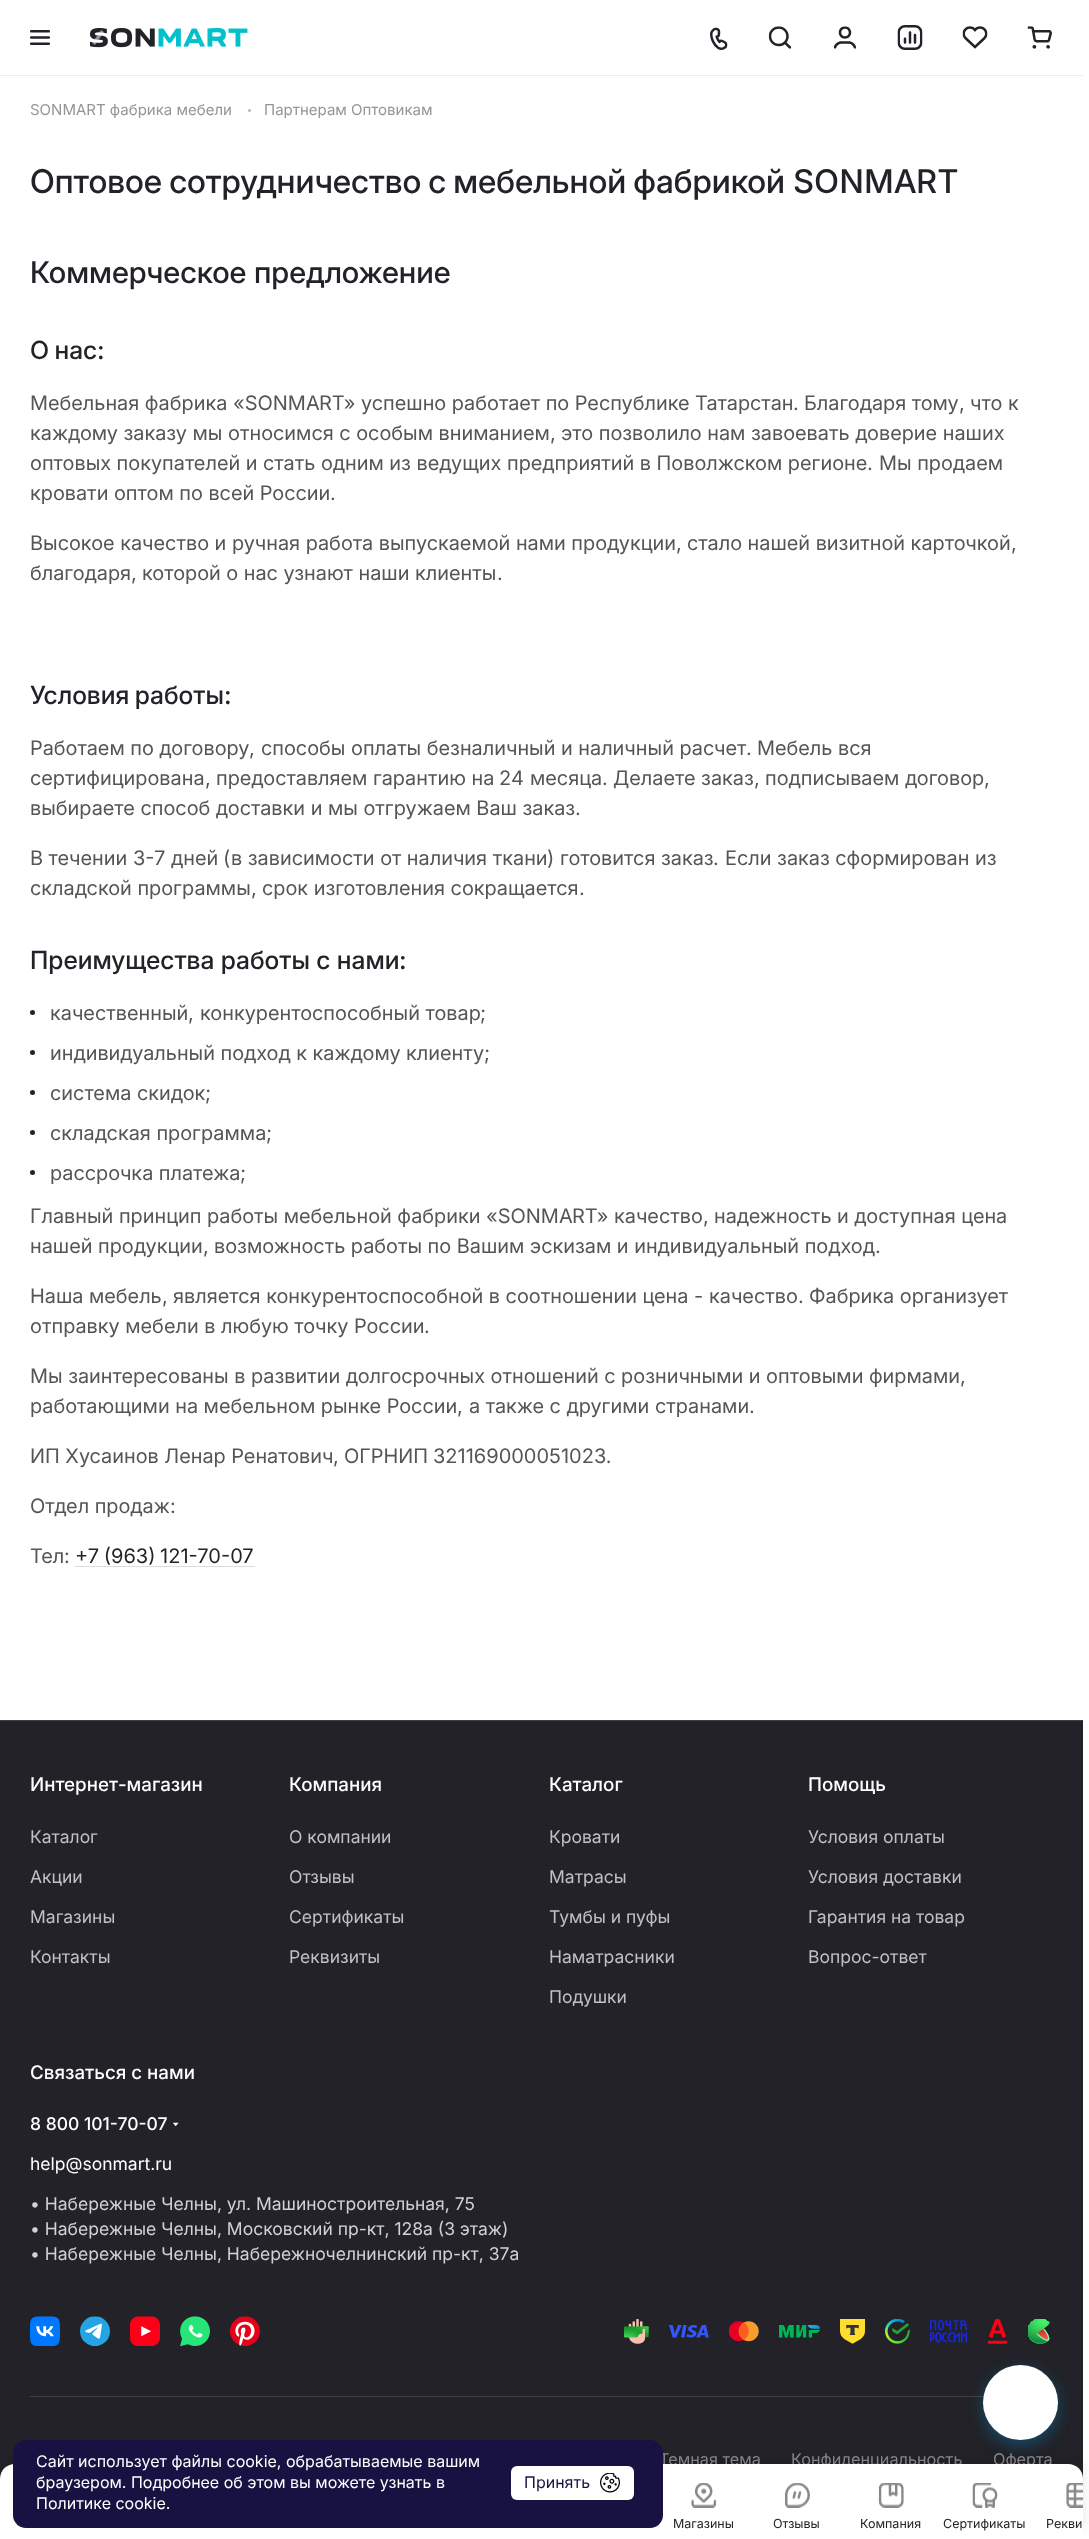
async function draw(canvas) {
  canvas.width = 1089;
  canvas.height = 2539;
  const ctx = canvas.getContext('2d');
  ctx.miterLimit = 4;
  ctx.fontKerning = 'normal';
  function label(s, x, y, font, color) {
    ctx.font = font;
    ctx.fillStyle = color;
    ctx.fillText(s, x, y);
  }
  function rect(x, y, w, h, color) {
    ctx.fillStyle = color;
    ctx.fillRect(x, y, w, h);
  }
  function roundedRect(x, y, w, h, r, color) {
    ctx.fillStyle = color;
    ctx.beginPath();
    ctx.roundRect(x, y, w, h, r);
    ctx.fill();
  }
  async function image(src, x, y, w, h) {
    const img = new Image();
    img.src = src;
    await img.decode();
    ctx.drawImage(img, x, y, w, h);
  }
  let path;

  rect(0, 0, 1089, 2539, '#fff');
  rect(0, 75, 1083, 1, '#ebecef');
  await image('assets/img1.png', 30, 30, 20, 15);
  await image('assets/img2.png', 90, 28, 158, 20);
  ctx.fillStyle = '#ffffff80';
  path = new Path2D('M104 32L95 45L92 43L101 30Z');
  ctx.fill(path);
  await image('assets/img3.png', 710, 27, 18, 23);
  await image('assets/img4.png', 768, 26, 24, 23);
  await image('assets/img5.png', 833, 26, 24, 23);
  await image('assets/img6.png', 897, 25, 26, 25);
  await image('assets/img7.png', 962, 26, 26, 23);
  await image('assets/img8.png', 1027, 26, 25, 23);
  label('SONMART фабрика мебели', 30, 115, '15px Inter', '#959598');
  ctx.fillStyle = '#b8b8b9';
  ctx.beginPath();
  ctx.arc(249.5, 110.5, 1.5, 0, 2 * Math.PI);
  ctx.fill();
  label('Партнерам Оптовикам', 264, 115, '15px Inter', '#959598');
  ctx.wordSpacing = '-1px';
  label('Оптовое сотрудничество с мебельной фабрикой', 30, 193, '500 32.7px "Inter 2"', '#222228');
  ctx.wordSpacing = '0px';
  label('SONM', 793, 193, '500 32.7px Inter', '#222228');
  label('A', 894, 193, '500 32.7px "Inter 2"', '#222228');
  label('RT', 916, 193, '500 32.7px Inter', '#222228');
  label('Коммерческое предложение', 30, 283, '500 30px "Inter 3"', '#222228');
  ctx.wordSpacing = '-1px';
  label('О нас', 30, 359, '500 25px "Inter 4"', '#222228');
  ctx.wordSpacing = '0px';
  label(':', 97, 359, '500 25px Inter', '#222228');
  label('Мебельная фабрика', 30, 410, '20px "Inter 2"', '#555558');
  label('«SONM', 233, 410, '20px Inter', '#555558');
  label('A', 306, 410, '20px "Inter 2"', '#555558');
  label('RT»', 319, 410, '20px Inter', '#555558');
  label('успешно работает по Республике Татарстан', 361, 410, '20px "Inter 2"', '#555558');
  label('.', 793, 410, '20px Inter', '#555558');
  label('Благодаря тому', 804, 410, '20px "Inter 2"', '#555558');
  label(',', 959, 410, '20px Inter', '#555558');
  label('что к', 970, 410, '20px "Inter 2"', '#555558');
  label('каждому заказу мы относимся с особым вниманием', 30, 440, '20px "Inter 2"', '#555558');
  label(',', 550, 440, '20px Inter', '#555558');
  label('это позволило нам завоевать доверие наших', 561, 440, '20px "Inter 2"', '#555558');
  label('оптовых покупателей и стать одним из ведущих предприятий в Поволжском регионе', 30, 470, '20px "Inter 2"', '#555558');
  label('.', 867, 470, '20px Inter', '#555558');
  label('Мы продаем', 879, 470, '20px "Inter 2"', '#555558');
  label('кровати оптом по всей России', 30, 500, '20px "Inter 2"', '#555558');
  label('.', 330, 500, '20px Inter', '#555558');
  label('Высокое качество и ручная работа выпускаемой нами продукции', 30, 550, '20px "Inter 2"', '#555558');
  label(',', 676, 550, '20px Inter', '#555558');
  label('стало нашей визитной карточкой', 687, 550, '20px "Inter 2"', '#555558');
  label(',', 1011, 550, '20px Inter', '#555558');
  label('благодаря', 30, 580, '20px "Inter 2"', '#555558');
  label(',', 131, 580, '20px Inter', '#555558');
  label('которой о нас узнают наши клиенты', 142, 580, '20px "Inter 2"', '#555558');
  label('.', 497, 580, '20px Inter', '#555558');
  ctx.wordSpacing = '-1px';
  label('Условия работы', 30, 704, '500 25px "Inter 4"', '#222228');
  ctx.wordSpacing = '0px';
  label(':', 224, 704, '500 25px Inter', '#222228');
  label('Работаем по договору', 30, 755, '20px "Inter 2"', '#555558');
  label(',', 249, 755, '20px Inter', '#555558');
  label('способы оплаты безналичный и наличный расчет', 261, 755, '20px "Inter 2"', '#555558');
  label('.', 746, 755, '20px Inter', '#555558');
  label('Мебель вся', 757, 755, '20px "Inter 2"', '#555558');
  label('сертифицирована', 30, 785, '20px "Inter 2"', '#555558');
  label(',', 205, 785, '20px Inter', '#555558');
  label('предоставляем гарантию на', 216, 785, '20px "Inter 2"', '#555558');
  label('24', 499, 785, '20px Inter', '#555558');
  label('месяца', 530, 785, '20px "Inter 2"', '#555558');
  label('.', 602, 785, '20px Inter', '#555558');
  label('Делаете заказ', 613, 785, '20px "Inter 2"', '#555558');
  label(',', 754, 785, '20px Inter', '#555558');
  label('подписываем договор', 765, 785, '20px "Inter 2"', '#555558');
  label(',', 984, 785, '20px Inter', '#555558');
  label('выбираете способ доставки и мы отгружаем Ваш заказ', 30, 815, '20px "Inter 2"', '#555558');
  label('.', 575, 815, '20px Inter', '#555558');
  label('В течении', 30, 865, '20px "Inter 2"', '#555558');
  label('3-7', 133, 865, '20px Inter', '#555558');
  label('дней', 171, 865, '20px "Inter 2"', '#555558');
  label('(', 223, 865, '20px Inter', '#555558');
  label('в зависимости от наличия ткани', 231, 865, '20px "Inter 2"', '#555558');
  label(')', 547, 865, '20px Inter', '#555558');
  label('готовится заказ', 560, 865, '20px "Inter 2"', '#555558');
  label('.', 713, 865, '20px Inter', '#555558');
  label('Если заказ сформирован из', 725, 865, '20px "Inter 2"', '#555558');
  label('складской программы', 30, 895, '20px "Inter 2"', '#555558');
  label(',', 251, 895, '20px Inter', '#555558');
  label('срок изготовления сокращается', 262, 895, '20px "Inter 2"', '#555558');
  label('.', 579, 895, '20px Inter', '#555558');
  label('Преимущества работы с нами', 30, 969, '500 25px "Inter 4"', '#222228');
  label(':', 399, 969, '500 25px Inter', '#222228');
  ctx.beginPath();
  ctx.arc(32.5, 1012.5, 2.5, 0, 2 * Math.PI);
  ctx.fill();
  label('качественный', 50, 1020, '20px "Inter 2"', '#555558');
  label('конкурентоспособный товар', 200, 1020, '20px "Inter 2"', '#555558');
  label(';', 480, 1020, '20px Inter', '#555558');
  label(',', 188, 1020, '20px Inter', '#555558');
  ctx.fillStyle = '#222228';
  ctx.beginPath();
  ctx.arc(32.5, 1052.5, 2.5, 0, 2 * Math.PI);
  ctx.fill();
  label('индивидуальный подход к каждому клиенту', 50, 1060, '20px "Inter 2"', '#555558');
  label(';', 484, 1060, '20px Inter', '#555558');
  ctx.fillStyle = '#222228';
  ctx.beginPath();
  ctx.arc(32.5, 1092.5, 2.5, 0, 2 * Math.PI);
  ctx.fill();
  label('система скидок', 50, 1100, '20px "Inter 2"', '#555558');
  label(';', 205, 1100, '20px Inter', '#555558');
  ctx.fillStyle = '#222228';
  ctx.beginPath();
  ctx.arc(32.5, 1132.5, 2.5, 0, 2 * Math.PI);
  ctx.fill();
  label('складская программа', 50, 1140, '20px "Inter 2"', '#555558');
  label(';', 266, 1140, '20px Inter', '#555558');
  ctx.fillStyle = '#222228';
  ctx.beginPath();
  ctx.arc(32.5, 1172.5, 2.5, 0, 2 * Math.PI);
  ctx.fill();
  label('рассрочка платежа', 50, 1180, '20px "Inter 2"', '#555558');
  label(';', 240, 1180, '20px Inter', '#555558');
  label('Главный принцип работы мебельной фабрики', 30, 1223, '20px "Inter 2"', '#555558');
  label('«SONM', 486, 1223, '20px Inter', '#555558');
  label('A', 559, 1223, '20px "Inter 2"', '#555558');
  label('RT»', 572, 1223, '20px Inter', '#555558');
  label('качество', 614, 1223, '20px "Inter 2"', '#555558');
  label(',', 703, 1223, '20px Inter', '#555558');
  label('надежность и доступная цена', 714, 1223, '20px "Inter 2"', '#555558');
  label('нашей продукции', 30, 1253, '20px "Inter 2"', '#555558');
  label(',', 203, 1253, '20px Inter', '#555558');
  label('возможность работы по Вашим эскизам и индивидуальный подход', 214, 1253, '20px "Inter 2"', '#555558');
  label('.', 875, 1253, '20px Inter', '#555558');
  label('Наша мебель', 30, 1303, '20px "Inter 2"', '#555558');
  label('является конкурентоспособной в соотношении цена', 173, 1303, '20px "Inter 2"', '#555558');
  label('-', 694, 1303, '20px Inter', '#555558');
  label('качество', 709, 1303, '20px "Inter 2"', '#555558');
  label('Фабрика организует', 809, 1303, '20px "Inter 2"', '#555558');
  label(',', 162, 1303, '20px Inter', '#555558');
  label('.', 798, 1303, '20px Inter', '#555558');
  label('отправку мебели в любую точку России', 30, 1333, '20px "Inter 2"', '#555558');
  label('.', 424, 1333, '20px Inter', '#555558');
  label('Мы заинтересованы в развитии долгосрочных отношений с розничными и оптовыми фирмами', 30, 1383, '20px "Inter 2"', '#555558');
  label(',', 960, 1383, '20px Inter', '#555558');
  label('работающими на мебельном рынке России', 30, 1413, '20px "Inter 2"', '#555558');
  label(',', 457, 1413, '20px Inter', '#555558');
  label('а также с другими странами', 469, 1413, '20px "Inter 2"', '#555558');
  label('.', 749, 1413, '20px Inter', '#555558');
  label('ИП Хусаинов Ленар Ренатович', 30, 1463, '20px "Inter 2"', '#555558');
  label(',', 333, 1463, '20px Inter', '#555558');
  label('ОГРНИП', 344, 1463, '20px "Inter 2"', '#555558');
  label('321169000051023.', 433, 1463, '20px Inter', '#555558');
  label('Отдел продаж', 30, 1513, '20px "Inter 2"', '#555558');
  label(':', 170, 1513, '20px Inter', '#555558');
  label('Тел', 30, 1563, '20px "Inter 2"', '#555558');
  label(':', 64, 1563, '20px Inter', '#555558');
  ctx.wordSpacing = '-1px';
  label('+7 (963) 121-70-07', 75, 1563, '20px Inter', '#222228');
  rect(75, 1566, 180, 1, '#dcdcdd');
  rect(0, 1721, 1083, 758, '#222228');
  rect(0, 1720, 1083, 1, '#3f3f45');
  ctx.wordSpacing = '0px';
  label('Интернет-магазин', 30, 1791, '500 18.75px Inter', '#fff');
  label('Каталог', 30, 1843, '17.5px Inter', '#c1c1c3');
  label('Акции', 30, 1883, '17.5px Inter', '#c1c1c3');
  label('Магазины', 30, 1923, '17.5px Inter', '#c1c1c3');
  label('Контакты', 30, 1963, '17.5px Inter', '#c1c1c3');
  label('Компания', 289, 1791, '500 18.75px Inter', '#fff');
  label('О компании', 289, 1843, '17.5px Inter', '#c1c1c3');
  label('Отзывы', 289, 1883, '17.5px Inter', '#c1c1c3');
  label('Сертификаты', 289, 1923, '17.5px Inter', '#c1c1c3');
  label('Реквизиты', 289, 1963, '17.5px Inter', '#c1c1c3');
  label('Каталог', 549, 1791, '500 18.75px Inter', '#fff');
  label('Кровати', 549, 1843, '17.5px Inter', '#c1c1c3');
  label('Матрасы', 549, 1883, '17.5px Inter', '#c1c1c3');
  label('Тумбы и пуфы', 549, 1923, '17.5px Inter', '#c1c1c3');
  label('Наматрасники', 549, 1963, '17.5px Inter', '#c1c1c3');
  label('Подушки', 549, 2003, '17.5px Inter', '#c1c1c3');
  label('Помощь', 808, 1791, '500 18.75px Inter', '#fff');
  label('Условия оплаты', 808, 1843, '17.5px Inter', '#c1c1c3');
  label('Условия доставки', 808, 1883, '17.5px Inter', '#c1c1c3');
  label('Гарантия на товар', 808, 1923, '17.5px Inter', '#c1c1c3');
  label('Вопрос-ответ', 808, 1963, '17.5px Inter', '#c1c1c3');
  label('Связаться с нами', 30, 2079, '500 18.75px Inter', '#fff');
  label('8 800 101-70-07', 30, 2130, '500 17.5px Inter', '#fff');
  await image('assets/img9.png', 172, 2122, 7, 4);
  label('help@sonmart.ru', 30, 2170, '17.5px Inter', '#fff');
  label('• Набережные Челны, ул. Машиностроительная, 75', 30, 2210, '17.5px Inter', '#d1d1d7');
  label('• Набережные Челны, Московский пр-кт, 128а (3 этаж)', 30, 2235, '17.5px Inter', '#d1d1d7');
  label('• Набережные Челны, Набережночелнинский пр-кт, 37а', 30, 2260, '17.5px Inter', '#d1d1d7');
  await image('assets/img10.png', 30, 2316, 30, 30);
  await image('assets/img11.png', 80, 2316, 30, 30);
  await image('assets/img12.png', 130, 2316, 30, 30);
  await image('assets/img13.png', 180, 2316, 30, 30);
  await image('assets/img14.png', 230, 2316, 30, 30);
  await image('assets/img15.png', 624, 2319, 25, 25);
  await image('assets/img16.png', 669, 2325, 40, 13);
  await image('assets/img17.png', 729, 2321, 30, 21);
  await image('assets/img18.png', 779, 2325, 41, 13);
  await image('assets/img19.png', 840, 2319, 25, 25);
  await image('assets/img20.png', 885, 2319, 25, 25);
  await image('assets/img21.png', 930, 2320, 38, 23);
  await image('assets/img22.png', 988, 2319, 20, 25);
  await image('assets/img23.png', 1028, 2319, 22, 25);
  rect(30, 2396, 954, 1, '#3f3f45');
  label('Темная тема', 659, 2465, '16.25px Inter', '#8c8c8f');
  label('Конфиденциальность', 791, 2465, '16.25px Inter', '#8c8c8f');
  label('Оферта', 993, 2465, '16.25px Inter', '#8c8c8f');
  ctx.fillStyle = '#0000001a';
  ctx.filter = 'blur(6px)';
  ctx.beginPath();
  ctx.roundRect(0, 2460, 1083, 76, 15);
  ctx.fill();
  ctx.filter = 'none';
  ctx.fillStyle = '#fff';
  path = new Path2D('M15 2464H1068C1076.5 2464 1083 2470.5 1083 2479V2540H0V2479C0 2470.5 6.5 2464 15 2464Z');
  ctx.fill(path);
  ctx.fillStyle = '#0088cc66';
  ctx.filter = 'blur(7.5px)';
  ctx.beginPath();
  ctx.roundRect(983, 2370, 75, 75, 37.5);
  ctx.fill();
  ctx.filter = 'none';
  ctx.fillStyle = '#fff';
  ctx.beginPath();
  ctx.arc(1020.5, 2402.5, 37.5, 0, 2 * Math.PI);
  ctx.fill();
  await image('assets/img24.png', 691, 2483, 26, 25);
  label('Магазины', 673, 2528, '12.5px Inter', '#222228');
  await image('assets/img25.png', 785, 2483, 25, 25);
  label('Отзывы', 773, 2528, '12.5px Inter', '#222228');
  await image('assets/img26.png', 878, 2483, 26, 25);
  label('Компания', 860, 2528, '12.5px Inter', '#222228');
  await image('assets/img27.png', 972, 2483, 26, 25);
  label('Сертификаты', 943, 2528, '12.5px Inter', '#222228');
  await image('assets/img28.png', 1066, 2483, 17, 25);
  label('Рекви', 1046, 2528, '12.5px Inter', '#222228');
  roundedRect(13, 2440, 650, 88, 13, '#171241');
  label('Сайт использует файлы cookie, обрабатываемые вашим', 36, 2467, '16px Inter', '#fff');
  label('браузером. Подробнее об этом вы можете узнать в', 36, 2488, '16px Inter', '#fff');
  label('Политике cookie.', 36, 2509, '16px Inter', '#fff');
  rect(36, 2513, 130, 1, '#19153d');
  roundedRect(511, 2466, 123, 34, 6, '#fff');
  label('Принять', 524, 2488, '16px Inter', '#171241');
  await image('assets/img29.png', 600, 2473, 20, 20);
}

draw(document.querySelector('canvas'));
